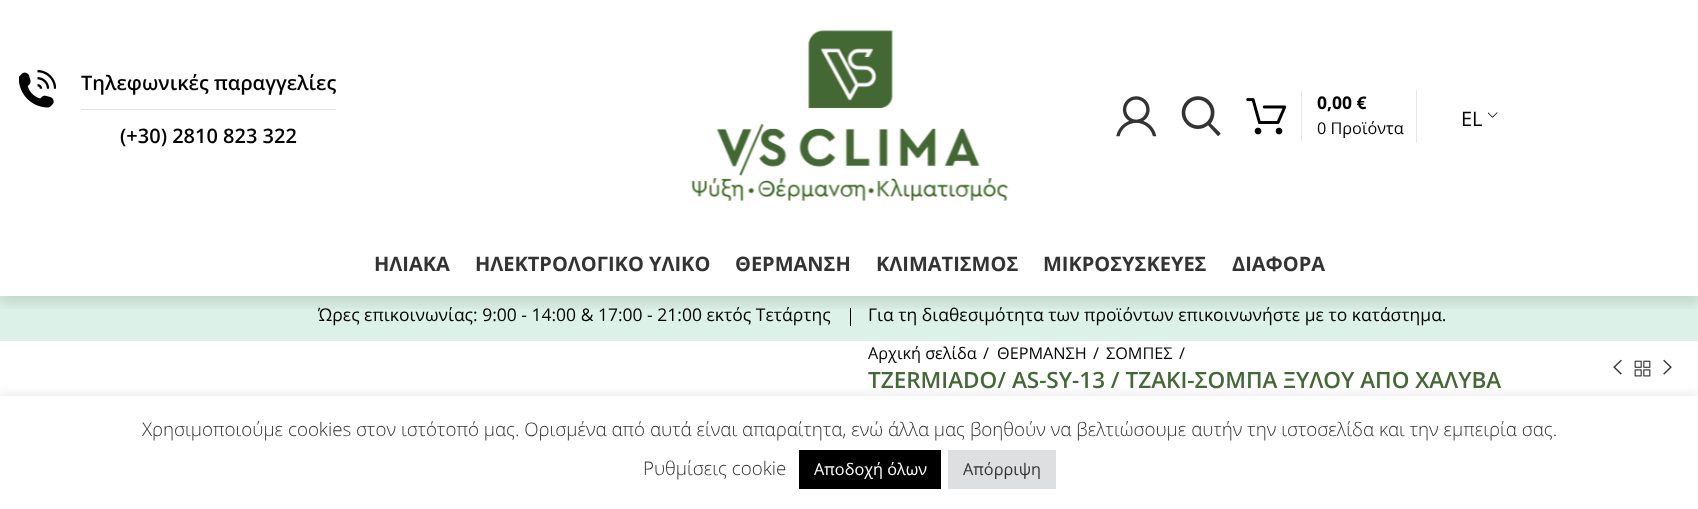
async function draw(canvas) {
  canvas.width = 1698;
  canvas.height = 509;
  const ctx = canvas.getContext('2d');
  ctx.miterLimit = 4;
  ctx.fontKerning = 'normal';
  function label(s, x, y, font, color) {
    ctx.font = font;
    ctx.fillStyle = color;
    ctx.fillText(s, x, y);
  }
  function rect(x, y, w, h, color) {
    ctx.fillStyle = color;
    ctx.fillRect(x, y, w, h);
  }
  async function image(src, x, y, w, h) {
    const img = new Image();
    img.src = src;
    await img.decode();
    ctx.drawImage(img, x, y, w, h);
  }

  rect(0, 0, 1698, 509, '#fff');
  await image('assets/img1.png', 19, 70, 37, 38);
  rect(81, 109, 255, 1, '#e4e4e4');
  label('Τηλεφωνικές παραγγελίες', 81, 90, '600 20px Open Sans', '#000');
  label('(+30) 2810 823 322', 120, 143, '600 20px Open Sans', '#000');
  await image('assets/img2.png', 691, 30, 318, 171);
  await image('assets/img3.png', 1116, 96, 41, 41);
  await image('assets/img4.png', 1181, 96, 40, 41);
  await image('assets/img5.png', 1246, 98, 41, 37);
  rect(1301, 91, 1, 50, '#e6e6e6');
  label('0,00 €', 1317, 109, 'bold 17.5px Open Sans', '#000');
  label('0 Προϊόντα', 1317, 134, '16.25px Open Sans', '#000');
  rect(1416, 90, 1, 53, '#e6e6e6');
  await image('assets/img6.png', 1488, 112, 10, 6);
  label('EL', 1461, 126, '20px Open Sans', '#000');
  rect(0, 296, 1698, 45, '#dcf1e7');
  rect(850, 308, 1, 18, '#000');
  ctx.save();
  ctx.beginPath();
  ctx.rect(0, 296, 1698, 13);
  ctx.clip();
  ctx.fillStyle = '#0000001a';
  ctx.filter = 'blur(6px)';
  ctx.beginPath();
  ctx.rect(0, 239, 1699, 65);
  ctx.fill();
  ctx.filter = 'none';
  ctx.restore();
  label('ΗΛΙΑΚΑ', 374, 271, 'bold 20px Open Sans', '#333');
  label('ΗΛΕΚΤΡΟΛΟΓΙΚΟ ΥΛΙΚΟ', 475, 271, 'bold 20px Open Sans', '#333');
  label('ΘΕΡΜΑΝΣΗ', 735, 271, 'bold 20px Open Sans', '#333');
  label('ΚΛΙΜΑΤΙΣΜΟΣ', 876, 271, 'bold 20px Open Sans', '#333');
  label('ΜΙΚΡΟΣΥΣΚΕΥΕΣ', 1043, 271, 'bold 20px Open Sans', '#333');
  label('ΔΙΑΦΟΡΑ', 1232, 271, 'bold 20px Open Sans', '#333');
  label('Ώρες επικοινωνίας: 9:00 - 14:00 & 17:00 - 21:00 εκτός Τετάρτης', 318, 321, '17.5px Open Sans', '#000');
  label('Για τη διαθεσιμότητα των προϊόντων επικοινωνήστε με το κατάστημα.', 868, 321, '17.5px Open Sans', '#000');
  label('Αρχική σελίδα', 868, 359, '16.25px Open Sans', '#000');
  label('/', 983, 359, '16.25px Open Sans', '#000');
  label('ΘΕΡΜΑΝΣΗ', 997, 359, '16.25px Open Sans', '#000');
  label('/', 1093, 359, '16.25px Open Sans', '#000');
  label('ΣΟΜΠΕΣ', 1106, 359, '16.25px Open Sans', '#000');
  label('/', 1179, 359, '16.25px Open Sans', '#000');
  label('TZERMIADO/ AS-SY-13 / TZAKI-ΣΟΜΠΑ ΞΥΛΟΥ ΑΠΟ ΧΑΛΥΒΑ', 868, 388, '600 22.5px Open Sans', '#436835');
  await image('assets/img7.png', 1613, 359, 9, 16);
  await image('assets/img8.png', 1634, 360, 17, 17);
  await image('assets/img9.png', 1663, 359, 9, 16);
  ctx.fillStyle = '#acabab4d';
  ctx.filter = 'blur(6px)';
  ctx.beginPath();
  ctx.rect(0, 395, 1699, 114);
  ctx.fill();
  ctx.filter = 'none';
  rect(0, 396, 1698, 113, '#fff');
  label('Χρησιμοποιούμε cookies στον ιστότοπό μας. Ορισμένα από αυτά είναι απαραίτητα, ενώ άλλα μας βοηθούν να βελτιώσουμε αυτήν την ιστοσελίδα και την εμπειρία σας.', 142, 436, '300 18.75px Open Sans', '#333');
  label('Ρυθμίσεις cookie', 643, 475, '300 18.75px Open Sans', '#333');
  rect(799, 450, 142, 39, '#000');
  label('Αποδοχή όλων', 814, 475, '16.25px Open Sans', '#fff');
  rect(948, 450, 108, 39, '#dedfe0');
  label('Απόρριψη', 963, 475, '16.25px Open Sans', '#333');
}

draw(document.querySelector('canvas'));
